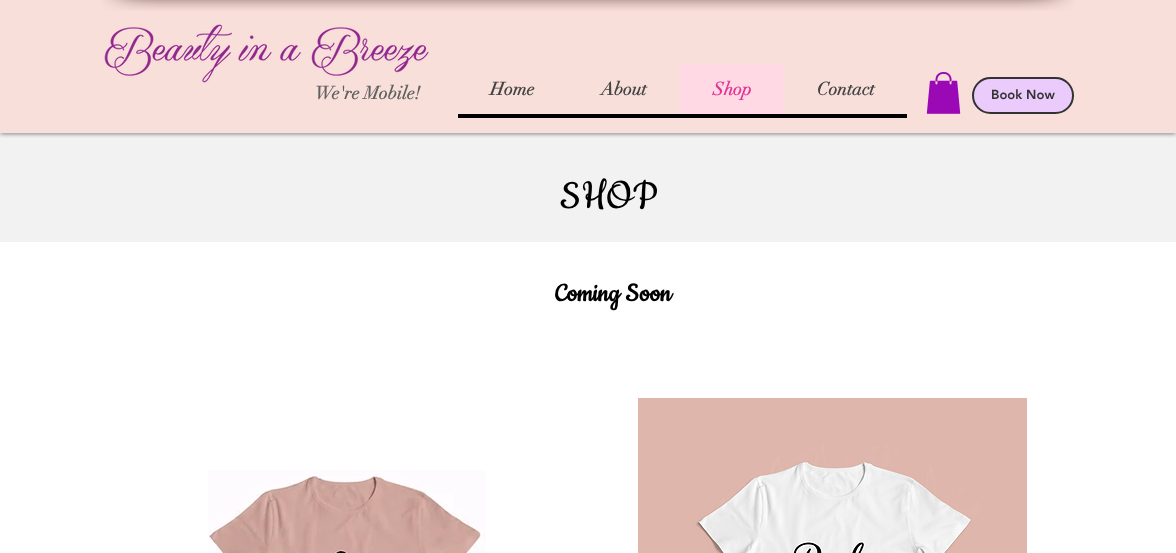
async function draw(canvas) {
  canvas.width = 1176;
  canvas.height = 553;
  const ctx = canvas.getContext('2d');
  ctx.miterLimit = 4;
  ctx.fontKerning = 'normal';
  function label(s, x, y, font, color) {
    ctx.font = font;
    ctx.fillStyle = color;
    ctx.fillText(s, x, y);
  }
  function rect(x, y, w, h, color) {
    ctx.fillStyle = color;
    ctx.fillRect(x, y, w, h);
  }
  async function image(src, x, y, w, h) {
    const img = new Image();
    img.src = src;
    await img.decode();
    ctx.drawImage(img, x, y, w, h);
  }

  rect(0, 0, 1176, 553, '#fff');
  rect(0, 0, 1176, 133, '#f9dfda');
  await image('assets/img1.png', 101, 0, 97, 11);
  await image('assets/img2.png', 198, 0, 780, 11);
  await image('assets/img3.png', 978, 0, 97, 11);
  rect(0, 134, 1176, 108, '#f2f2f2');
  ctx.save();
  ctx.beginPath();
  ctx.rect(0, 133, 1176, 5);
  ctx.clip();
  ctx.fillStyle = '#000000b3';
  ctx.filter = 'blur(2.5px)';
  ctx.beginPath();
  ctx.rect(0, 0, 1176, 133);
  ctx.fill();
  ctx.filter = 'none';
  ctx.restore();
  await image('assets/img4.png', 104, 24, 325, 59);
  label('We\'re Mobile!', 315, 99, 'bold 18px didot', '#606060');
  rect(458, 114, 449, 4, '#000');
  label('Home', 490, 95, 'bold 18px didot', '#444');
  label('About', 601, 95, 'bold 18px didot', '#444');
  rect(679, 64, 105, 50, '#ffd9e4');
  label('Shop', 713, 95, 'bold 18px didot', '#e33292');
  label('Contact', 817, 95, 'bold 18px didot', '#444');
  await image('assets/img5.png', 926, 72, 35, 42);
  ctx.fillStyle = '#eacbfc';
  ctx.beginPath();
  ctx.roundRect(973, 78, 100, 35, 17.5);
  ctx.fill();
  ctx.strokeStyle = '#323232';
  ctx.lineWidth = 2;
  ctx.stroke();
  label('Book Now', 991, 99, '900 13px "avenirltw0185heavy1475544"', '#323232');
  label('SHOP', 560, 208, '45px Cookie', '#000');
  label('Coming Soon', 555, 301, 'bold 29px Cookie', '#000');
  await image('assets/img6.png', 208, 470, 278, 83);
  await image('assets/img7.png', 638, 398, 389, 155);
}

draw(document.querySelector('canvas'));
